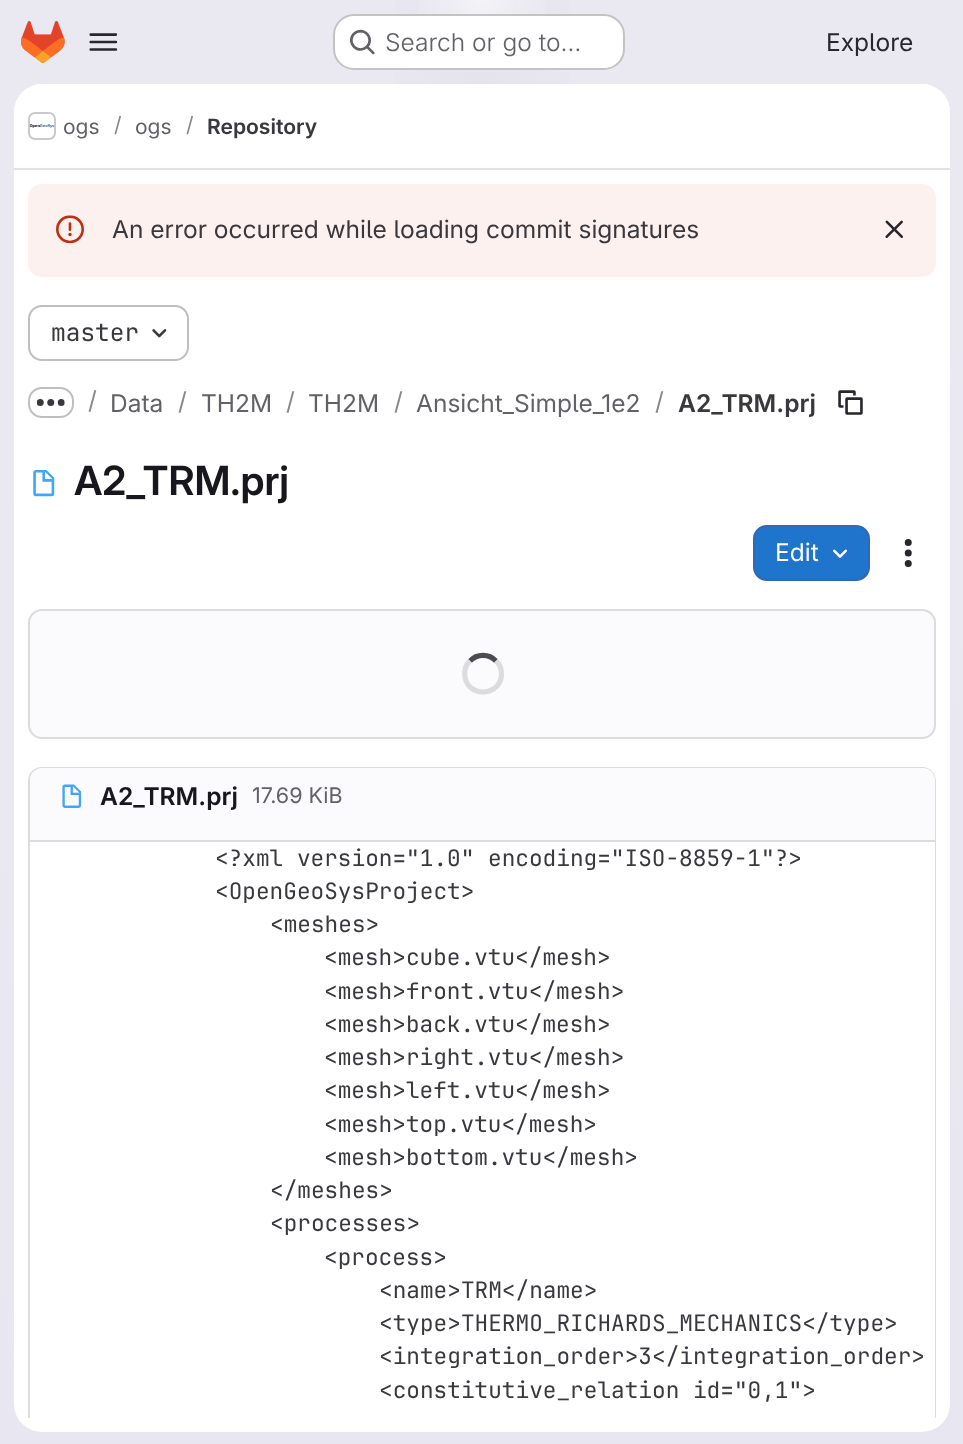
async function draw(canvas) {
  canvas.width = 963;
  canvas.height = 1444;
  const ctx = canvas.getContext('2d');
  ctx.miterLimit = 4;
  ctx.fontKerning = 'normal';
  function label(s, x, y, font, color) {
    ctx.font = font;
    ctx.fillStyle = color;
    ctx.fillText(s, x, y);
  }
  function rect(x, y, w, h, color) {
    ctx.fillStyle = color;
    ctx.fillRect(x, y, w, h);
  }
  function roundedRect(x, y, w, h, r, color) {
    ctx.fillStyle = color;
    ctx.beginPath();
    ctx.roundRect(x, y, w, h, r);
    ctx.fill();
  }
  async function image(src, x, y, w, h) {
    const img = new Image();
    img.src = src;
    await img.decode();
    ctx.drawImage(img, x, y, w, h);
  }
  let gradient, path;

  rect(0, 0, 963, 1444, '#fff');
  gradient = ctx.createLinearGradient(620, 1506, 344, -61);
  gradient.addColorStop(0, '#e8e6f0');
  gradient.addColorStop(0.7, '#eae9f2');
  ctx.fillStyle = gradient;
  ctx.fillRect(0, 0, 963, 1444);
  gradient = ctx.createRadialGradient(482, 0, 0, 482, 0, 482);
  gradient.addColorStop(0, '#e4e2ed');
  gradient.addColorStop(0.25, '#e4e2ed00');
  ctx.fillStyle = gradient;
  ctx.beginPath();
  ctx.rect(395, 0, 174, 84);
  ctx.save();
  ctx.clip();
  ctx.scale(1, 1446 / 482);
  ctx.fillRect(0, 0, 963, 482);
  ctx.restore();
  gradient = ctx.createRadialGradient(482, 0, 0, 482, 0, 482);
  gradient.addColorStop(0, '#e4e2ec');
  gradient.addColorStop(0.18, '#e4e2ec00');
  ctx.fillStyle = gradient;
  ctx.beginPath();
  ctx.rect(446, 1, 72, 64);
  ctx.save();
  ctx.clip();
  ctx.scale(1, 1446 / 482);
  ctx.fillRect(0, 0, 963, 482);
  ctx.restore();
  gradient = ctx.createRadialGradient(482, 0, 0, 482, 0, 1524);
  gradient.addColorStop(0, '#ffffff99');
  gradient.addColorStop(0.05, '#ffffff00');
  ctx.fillStyle = gradient;
  ctx.fillRect(418, 0, 128, 65);
  await image('assets/img1.png', 21, 21, 44, 42);
  await image('assets/img2.png', 89, 33, 29, 18);
  roundedRect(333, 14, 292, 56, 21, '#fff');
  ctx.beginPath();
  ctx.roundRect(334, 15, 290, 54, 20);
  ctx.strokeStyle = '#0505063d';
  ctx.lineWidth = 2;
  ctx.stroke();
  await image('assets/img3.png', 350, 29, 25, 26);
  label('Search or go to…', 385, 51, '300 24.5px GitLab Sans', '#626168');
  label('Explore', 826, 51, '24.5px GitLab Sans', '#28272d');
  roundedRect(14, 84, 936, 1348, 28, '#fff');
  ctx.beginPath();
  ctx.roundRect(14, 84, 936, 86, [28, 28, 0, 0]);
  ctx.fill();
  rect(14, 168, 936, 2, '#e1dfec');
  ctx.beginPath();
  ctx.roundRect(29, 113, 26, 26, 6);
  ctx.strokeStyle = '#dcdcde';
  ctx.stroke();
  await image('assets/img4.png', 29, 124, 26, 4);
  ctx.beginPath();
  ctx.roundRect(29, 113, 26, 26, 6);
  ctx.strokeStyle = '#05050614';
  ctx.stroke();
  label('ogs', 63, 134, '21px GitLab Sans', '#626168');
  label('/', 114, 132, '21px GitLab Sans', '#89888d');
  label('ogs', 135, 134, '21px GitLab Sans', '#626168');
  label('/', 186, 132, '21px GitLab Sans', '#89888d');
  label('Repository', 207, 134, '600 21px "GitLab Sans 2"', '#3a383f');
  roundedRect(28, 184, 908, 93, 14, '#fcf1ef');
  await image('assets/img5.png', 56, 215, 28, 29);
  label('An error occurred while loading commit signatures', 112, 238, '24.5px GitLab Sans', '#3a383f');
  await image('assets/img6.png', 885, 220, 18, 18);
  ctx.beginPath();
  ctx.roundRect(29, 306, 159, 54, 13);
  ctx.strokeStyle = '#bfbfc3';
  ctx.stroke();
  label('master', 51, 341, '24.5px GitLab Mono', '#3a383f');
  await image('assets/img7.png', 152, 329, 15, 9);
  ctx.beginPath();
  ctx.roundRect(29, 388, 44, 29, 13);
  ctx.stroke();
  await image('assets/img8.png', 36, 399, 29, 7);
  label('/', 88, 409, '24.5px GitLab Sans', '#89888d');
  label('Data', 110, 412, '24.5px GitLab Sans', '#626168');
  label('/', 178, 410, '24.5px GitLab Sans', '#89888d');
  label('TH2M', 201, 412, '24.5px GitLab Sans', '#626168');
  label('/', 286, 410, '24.5px GitLab Sans', '#89888d');
  label('TH2M', 308, 412, '24.5px GitLab Sans', '#626168');
  label('/', 394, 410, '24.5px GitLab Sans', '#89888d');
  label('Ansicht_Simple_1e2', 416, 412, '24.5px GitLab Sans', '#626168');
  label('/', 655, 410, '24.5px GitLab Sans', '#89888d');
  label('A2_TRM.prj', 678, 412, '600 24.5px "GitLab Sans 2"', '#3a383f');
  await image('assets/img9.png', 838, 390, 25, 25);
  await image('assets/img10.png', 33, 470, 22, 27);
  label('A2_TRM.prj', 74, 495, '600 40.25px GitLab Sans', '#18171d');
  ctx.fillStyle = '#1f75cb';
  ctx.beginPath();
  ctx.roundRect(754, 526, 115, 54, 13);
  ctx.fill();
  ctx.strokeStyle = '#2f68b4';
  ctx.stroke();
  label('Edit', 775, 561, '24.5px GitLab Sans', '#fff');
  await image('assets/img11.png', 833, 549, 14, 9);
  await image('assets/img12.png', 904, 539, 8, 28);
  ctx.fillStyle = '#fbfafd';
  ctx.beginPath();
  ctx.roundRect(29, 610, 906, 128, 13);
  ctx.fill();
  ctx.strokeStyle = '#dcdcde';
  ctx.stroke();
  path = new Path2D('M470 661C477 653.5 489 653.5 496 661');
  ctx.strokeStyle = '#4c4b51';
  ctx.lineWidth = 5.2;
  ctx.stroke(path);
  path = new Path2D('M496 661C499.5 664 501.5 669 501.5 674C501.5 695.5 469.5 699 465 677.5C464 671.5 465.5 665 470 661');
  ctx.strokeStyle = '#dcdcde';
  ctx.stroke(path);
  ctx.save();
  ctx.beginPath();
  ctx.rect(14, 170, 936, 1248);
  ctx.clip();
  ctx.fillStyle = '#dcdcde';
  path = new Path2D('M42 767C34 767 28 773 28 781V1428L30 1429V781C30 774 35 769 42 769H922C929 769 934 774 934 781V1429L936 1428V781C936 773 930 767 922 767Z');
  ctx.fill(path);
  ctx.restore();
  ctx.beginPath();
  ctx.roundRect(30, 768, 905, 74, [12, 12, 0, 0]);
  ctx.fill();
  rect(30, 840, 905, 2, '#dcdcde');
  await image('assets/img13.png', 62, 784, 20, 24);
  label('A2_TRM.prj', 100, 805, '600 24.5px "GitLab Sans 2"', '#18171d');
  label('17.69 KiB', 252, 803, '21.5px GitLab Sans', '#626168');
  rect(934, 842, 1, 576, '#fff');
  label('<?xml version="1.0" encoding="ISO-8859-1"?>', 215, 866, '22.75px GitLab Mono', '#3a383f');
  label('<OpenGeoSysProject>', 215, 899, '22.75px GitLab Mono', '#3a383f');
  label('<meshes>', 270, 932, '22.75px GitLab Mono', '#3a383f');
  label('<mesh>cube.vtu<\/mesh>', 324, 965, '22.75px GitLab Mono', '#3a383f');
  label('<mesh>front.vtu<\/mesh>', 324, 999, '22.75px GitLab Mono', '#3a383f');
  label('<mesh>back.vtu<\/mesh>', 324, 1032, '22.75px GitLab Mono', '#3a383f');
  label('<mesh>right.vtu<\/mesh>', 324, 1065, '22.75px GitLab Mono', '#3a383f');
  label('<mesh>left.vtu<\/mesh>', 324, 1098, '22.75px GitLab Mono', '#3a383f');
  label('<mesh>top.vtu<\/mesh>', 324, 1132, '22.75px GitLab Mono', '#3a383f');
  label('<mesh>bottom.vtu<\/mesh>', 324, 1165, '22.75px GitLab Mono', '#3a383f');
  label('<\/meshes>', 270, 1198, '22.75px GitLab Mono', '#3a383f');
  label('<processes>', 270, 1231, '22.75px GitLab Mono', '#3a383f');
  label('<process>', 324, 1265, '22.75px GitLab Mono', '#3a383f');
  label('<name>TRM<\/name>', 379, 1298, '22.75px GitLab Mono', '#3a383f');
  label('<type>THERMO_RICHARDS_MECHANICS<\/type>', 379, 1331, '22.75px GitLab Mono', '#3a383f');
  label('<integration_order>3<\/integration_order>', 379, 1364, '22.75px GitLab Mono', '#3a383f');
  label('<constitutive_relation id="0,1">', 379, 1398, '22.75px GitLab Mono', '#3a383f');
}

draw(document.querySelector('canvas'));
